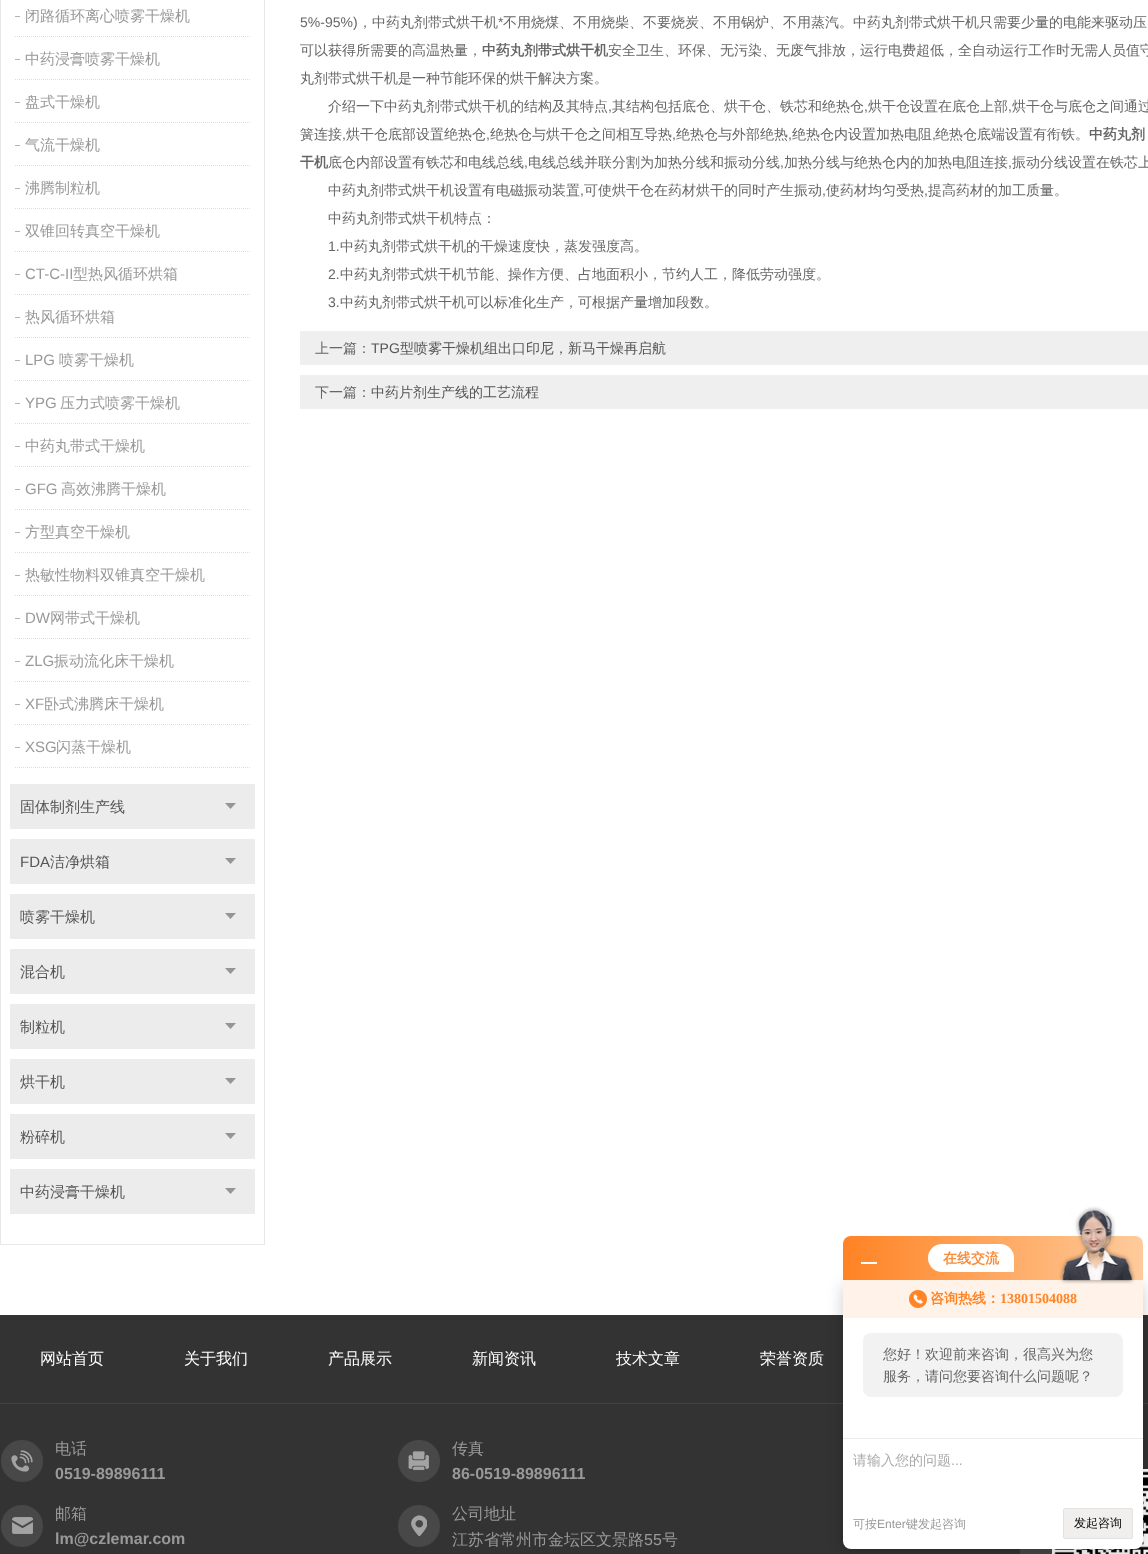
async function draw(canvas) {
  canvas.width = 1148;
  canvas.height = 1554;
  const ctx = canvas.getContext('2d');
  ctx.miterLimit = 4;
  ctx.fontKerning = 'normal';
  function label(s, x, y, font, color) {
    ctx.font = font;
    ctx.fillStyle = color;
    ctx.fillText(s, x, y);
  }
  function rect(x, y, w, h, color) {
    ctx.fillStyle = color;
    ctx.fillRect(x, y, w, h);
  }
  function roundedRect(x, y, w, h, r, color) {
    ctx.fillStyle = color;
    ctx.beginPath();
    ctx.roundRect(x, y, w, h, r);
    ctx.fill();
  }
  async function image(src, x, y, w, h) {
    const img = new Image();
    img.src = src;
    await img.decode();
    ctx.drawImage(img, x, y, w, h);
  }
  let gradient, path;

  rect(0, 0, 1148, 1554, '#fff');
  rect(264, 0, 1, 1245, '#e8e8e8');
  rect(0, 1244, 265, 1, '#e8e8e8');
  rect(0, 0, 1, 1245, '#e8e8e8');
  path = new Path2D('M15 36.5H250');
  ctx.strokeStyle = '#dedede';
  ctx.setLineDash([1, 1]);
  ctx.stroke(path);
  rect(15, 16, 5, 1, '#b3b3b3');
  label('闭路循环离心喷雾干燥机', 25, 21, '500 15px WenQuanYi Zen Hei', '#999');
  path = new Path2D('M15 79.5H250');
  ctx.stroke(path);
  rect(15, 59, 5, 1, '#b3b3b3');
  label('中药浸膏喷雾干燥机', 25, 64, '500 15px WenQuanYi Zen Hei', '#999');
  path = new Path2D('M15 122.5H250');
  ctx.stroke(path);
  rect(15, 102, 5, 1, '#b3b3b3');
  label('盘式干燥机', 25, 107, '500 15px WenQuanYi Zen Hei', '#999');
  path = new Path2D('M15 165.5H250');
  ctx.stroke(path);
  rect(15, 145, 5, 1, '#b3b3b3');
  label('气流干燥机', 25, 150, '500 15px WenQuanYi Zen Hei', '#999');
  path = new Path2D('M15 208.5H250');
  ctx.stroke(path);
  rect(15, 188, 5, 1, '#b3b3b3');
  label('沸腾制粒机', 25, 193, '500 15px WenQuanYi Zen Hei', '#999');
  path = new Path2D('M15 251.5H250');
  ctx.stroke(path);
  rect(15, 231, 5, 1, '#b3b3b3');
  label('双锥回转真空干燥机', 25, 236, '500 15px WenQuanYi Zen Hei', '#999');
  path = new Path2D('M15 294.5H250');
  ctx.stroke(path);
  rect(15, 274, 5, 1, '#b3b3b3');
  label('CT-C-II', 25, 279, '15px Liberation Sans', '#999');
  label('型热风循环烘箱', 73, 279, '500 15px WenQuanYi Zen Hei', '#999');
  path = new Path2D('M15 337.5H250');
  ctx.stroke(path);
  rect(15, 317, 5, 1, '#b3b3b3');
  label('热风循环烘箱', 25, 322, '500 15px WenQuanYi Zen Hei', '#999');
  path = new Path2D('M15 380.5H250');
  ctx.stroke(path);
  rect(15, 360, 5, 1, '#b3b3b3');
  label('LPG', 25, 365, '15px Liberation Sans', '#999');
  label('喷雾干燥机', 59, 365, '500 15px WenQuanYi Zen Hei', '#999');
  path = new Path2D('M15 423.5H250');
  ctx.stroke(path);
  rect(15, 403, 5, 1, '#b3b3b3');
  label('YPG', 25, 408, '15px Liberation Sans', '#999');
  label('压力式喷雾干燥机', 60, 408, '500 15px WenQuanYi Zen Hei', '#999');
  path = new Path2D('M15 466.5H250');
  ctx.stroke(path);
  rect(15, 446, 5, 1, '#b3b3b3');
  label('中药丸带式干燥机', 25, 451, '500 15px WenQuanYi Zen Hei', '#999');
  path = new Path2D('M15 509.5H250');
  ctx.stroke(path);
  rect(15, 489, 5, 1, '#b3b3b3');
  label('GFG', 25, 494, '15px Liberation Sans', '#999');
  label('高效沸腾干燥机', 61, 494, '500 15px WenQuanYi Zen Hei', '#999');
  path = new Path2D('M15 552.5H250');
  ctx.stroke(path);
  rect(15, 532, 5, 1, '#b3b3b3');
  label('方型真空干燥机', 25, 537, '500 15px WenQuanYi Zen Hei', '#999');
  path = new Path2D('M15 595.5H250');
  ctx.stroke(path);
  rect(15, 575, 5, 1, '#b3b3b3');
  label('热敏性物料双锥真空干燥机', 25, 580, '500 15px WenQuanYi Zen Hei', '#999');
  path = new Path2D('M15 638.5H250');
  ctx.stroke(path);
  rect(15, 618, 5, 1, '#b3b3b3');
  label('DW', 25, 623, '15px Liberation Sans', '#999');
  label('网带式干燥机', 50, 623, '500 15px WenQuanYi Zen Hei', '#999');
  path = new Path2D('M15 681.5H250');
  ctx.stroke(path);
  rect(15, 661, 5, 1, '#b3b3b3');
  label('ZLG', 25, 666, '15px Liberation Sans', '#999');
  label('振动流化床干燥机', 54, 666, '500 15px WenQuanYi Zen Hei', '#999');
  path = new Path2D('M15 724.5H250');
  ctx.stroke(path);
  rect(15, 704, 5, 1, '#b3b3b3');
  label('XF', 25, 709, '15px Liberation Sans', '#999');
  label('卧式沸腾床干燥机', 44, 709, '500 15px WenQuanYi Zen Hei', '#999');
  path = new Path2D('M15 767.5H250');
  ctx.stroke(path);
  rect(15, 747, 5, 1, '#b3b3b3');
  label('XSG', 25, 752, '15px Liberation Sans', '#999');
  label('闪蒸干燥机', 56, 752, '500 15px WenQuanYi Zen Hei', '#999');
  rect(10, 784, 245, 45, '#ececec');
  label('固体制剂生产线', 20, 812, '500 15px WenQuanYi Zen Hei', '#555');
  await image('assets/img1.png', 225, 803, 11, 6);
  rect(10, 839, 245, 45, '#ececec');
  label('FDA', 20, 867, '15px Liberation Sans', '#555');
  label('洁净烘箱', 50, 867, '500 15px WenQuanYi Zen Hei', '#555');
  await image('assets/img1.png', 225, 858, 11, 6);
  rect(10, 894, 245, 45, '#ececec');
  label('喷雾干燥机', 20, 922, '500 15px WenQuanYi Zen Hei', '#555');
  await image('assets/img1.png', 225, 913, 11, 6);
  rect(10, 949, 245, 45, '#ececec');
  label('混合机', 20, 977, '500 15px WenQuanYi Zen Hei', '#555');
  await image('assets/img1.png', 225, 968, 11, 6);
  rect(10, 1004, 245, 45, '#ececec');
  label('制粒机', 20, 1032, '500 15px WenQuanYi Zen Hei', '#555');
  await image('assets/img1.png', 225, 1023, 11, 6);
  rect(10, 1059, 245, 45, '#ececec');
  label('烘干机', 20, 1087, '500 15px WenQuanYi Zen Hei', '#555');
  await image('assets/img1.png', 225, 1078, 11, 6);
  rect(10, 1114, 245, 45, '#ececec');
  label('粉碎机', 20, 1142, '500 15px WenQuanYi Zen Hei', '#555');
  await image('assets/img1.png', 225, 1133, 11, 6);
  rect(10, 1169, 245, 45, '#ececec');
  label('中药浸膏干燥机', 20, 1197, '500 15px WenQuanYi Zen Hei', '#555');
  await image('assets/img1.png', 225, 1188, 11, 6);
  label('5%-95%)', 300, 27, '14px Liberation Sans', '#666');
  label('，中药丸剂带式烘干机', 358, 27, '500 14px WenQuanYi Zen Hei', '#666');
  label('*', 498, 27, '14px Liberation Sans', '#666');
  label('不用烧煤、不用烧柴、不要烧炭、不用锅炉、不用蒸汽。中药丸剂带式烘干机只需要少量的电能来驱动压', 503, 27, '500 14px WenQuanYi Zen Hei', '#666');
  label('可以获得所需要的高温热量，', 300, 55, '500 14px WenQuanYi Zen Hei', '#666');
  label('中药丸剂带式烘干机', 482, 55, 'bold 14px WenQuanYi Zen Hei', '#666');
  label('安全卫生、环保、无污染、无废气排放，运行电费超低，全自动运行工作时无需人员值守', 608, 55, '500 14px WenQuanYi Zen Hei', '#666');
  label('丸剂带式烘干机是一种节能环保的烘干解决方案。', 300, 83, '500 14px WenQuanYi Zen Hei', '#666');
  label('介绍一下中药丸剂带式烘干机的结构及其特点', 328, 111, '500 14px WenQuanYi Zen Hei', '#666');
  label(',', 608, 111, '14px Liberation Sans', '#666');
  label('其结构包括底仓、烘干仓、铁芯和绝热仓', 612, 111, '500 14px WenQuanYi Zen Hei', '#666');
  label(',', 864, 111, '14px Liberation Sans', '#666');
  label('烘干仓设置在底仓上部', 868, 111, '500 14px WenQuanYi Zen Hei', '#666');
  label(',', 1008, 111, '14px Liberation Sans', '#666');
  label('烘干仓与底仓之间通过', 1012, 111, '500 14px WenQuanYi Zen Hei', '#666');
  label('簧连接', 300, 139, '500 14px WenQuanYi Zen Hei', '#666');
  label(',', 342, 139, '14px Liberation Sans', '#666');
  label('烘干仓底部设置绝热仓', 346, 139, '500 14px WenQuanYi Zen Hei', '#666');
  label(',', 486, 139, '14px Liberation Sans', '#666');
  label('绝热仓与烘干仓之间相互导热', 490, 139, '500 14px WenQuanYi Zen Hei', '#666');
  label(',', 672, 139, '14px Liberation Sans', '#666');
  label('绝热仓与外部绝热', 676, 139, '500 14px WenQuanYi Zen Hei', '#666');
  label(',', 788, 139, '14px Liberation Sans', '#666');
  label('绝热仓内设置加热电阻', 792, 139, '500 14px WenQuanYi Zen Hei', '#666');
  label(',', 932, 139, '14px Liberation Sans', '#666');
  label('绝热仓底端设置有衔铁。', 935, 139, '500 14px WenQuanYi Zen Hei', '#666');
  label('中药丸剂', 1089, 139, 'bold 14px WenQuanYi Zen Hei', '#666');
  label('干机', 300, 167, 'bold 14px WenQuanYi Zen Hei', '#666');
  label('底仓内部设置有铁芯和电线总线', 328, 167, '500 14px WenQuanYi Zen Hei', '#666');
  label(',', 524, 167, '14px Liberation Sans', '#666');
  label('电线总线并联分割为加热分线和振动分线', 528, 167, '500 14px WenQuanYi Zen Hei', '#666');
  label(',', 780, 167, '14px Liberation Sans', '#666');
  label('加热分线与绝热仓内的加热电阻连接', 784, 167, '500 14px WenQuanYi Zen Hei', '#666');
  label(',', 1008, 167, '14px Liberation Sans', '#666');
  label('振动分线设置在铁芯上', 1012, 167, '500 14px WenQuanYi Zen Hei', '#666');
  label('中药丸剂带式烘干机设置有电磁振动装置', 328, 195, '500 14px WenQuanYi Zen Hei', '#666');
  label(',', 580, 195, '14px Liberation Sans', '#666');
  label('可使烘干仓在药材烘干的同时产生振动', 584, 195, '500 14px WenQuanYi Zen Hei', '#666');
  label(',', 822, 195, '14px Liberation Sans', '#666');
  label('使药材均匀受热', 826, 195, '500 14px WenQuanYi Zen Hei', '#666');
  label(',', 924, 195, '14px Liberation Sans', '#666');
  label('提高药材的加工质量。', 928, 195, '500 14px WenQuanYi Zen Hei', '#666');
  label('中药丸剂带式烘干机特点：', 328, 223, '500 14px WenQuanYi Zen Hei', '#666');
  label('1.', 328, 251, '14px Liberation Sans', '#666');
  label('中药丸剂带式烘干机的干燥速度快，蒸发强度高。', 340, 251, '500 14px WenQuanYi Zen Hei', '#666');
  label('2.', 328, 279, '14px Liberation Sans', '#666');
  label('中药丸剂带式烘干机节能、操作方便、占地面积小，节约人工，降低劳动强度。', 340, 279, '500 14px WenQuanYi Zen Hei', '#666');
  label('3.', 328, 307, '14px Liberation Sans', '#666');
  label('中药丸剂带式烘干机可以标准化生产，可根据产量增加段数。', 340, 307, '500 14px WenQuanYi Zen Hei', '#666');
  rect(300, 331, 848, 34, '#efefef');
  label('上一篇：', 315, 353, '500 14px WenQuanYi Zen Hei', '#666');
  label('TPG', 371, 353, '14px Liberation Sans', '#555');
  label('型喷雾干燥机组出口印尼，新马干燥再启航', 400, 353, '500 14px WenQuanYi Zen Hei', '#555');
  rect(300, 375, 848, 34, '#efefef');
  label('下一篇：', 315, 397, '500 14px WenQuanYi Zen Hei', '#666');
  label('中药片剂生产线的工艺流程', 371, 397, '500 14px WenQuanYi Zen Hei', '#555');
  rect(0, 1315, 1148, 239, '#333');
  rect(0, 1403, 1148, 1, '#434343');
  label('网站首页', 40, 1364, '500 16px WenQuanYi Zen Hei', '#fff');
  label('关于我们', 184, 1364, '500 16px WenQuanYi Zen Hei', '#fff');
  label('产品展示', 328, 1364, '500 16px WenQuanYi Zen Hei', '#fff');
  label('新闻资讯', 472, 1364, '500 16px WenQuanYi Zen Hei', '#fff');
  label('技术文章', 616, 1364, '500 16px WenQuanYi Zen Hei', '#fff');
  label('荣誉资质', 760, 1364, '500 16px WenQuanYi Zen Hei', '#fff');
  await image('assets/img2.png', 1, 1440, 42, 42);
  label('电话', 55, 1454, '500 16px WenQuanYi Zen Hei', '#999');
  label('0519-89896111', 55, 1479, 'bold 16px Liberation Sans', '#999');
  await image('assets/img3.png', 398, 1440, 42, 42);
  label('传真', 452, 1454, '500 16px WenQuanYi Zen Hei', '#999');
  label('86-0519-89896111', 452, 1479, 'bold 16px Liberation Sans', '#999');
  await image('assets/img4.png', 1, 1505, 42, 42);
  label('邮箱', 55, 1519, '500 16px WenQuanYi Zen Hei', '#999');
  label('lm@czlemar.com', 55, 1544, 'bold 16px Liberation Sans', '#999');
  await image('assets/img5.png', 398, 1505, 42, 42);
  label('公司地址', 452, 1519, '500 16px WenQuanYi Zen Hei', '#999');
  label('江苏省常州市金坛区文景路', 452, 1545, '500 16px WenQuanYi Zen Hei', '#999');
  label('55', 644, 1545, '16px Liberation Sans', '#999');
  label('号', 662, 1545, '500 16px WenQuanYi Zen Hei', '#999');
  rect(1020, 1549, 32, 5, '#484848');
  await image('assets/img6.png', 1052, 1469, 96, 85);
  ctx.fillStyle = '#00000033';
  ctx.filter = 'blur(8px)';
  ctx.beginPath();
  ctx.roundRect(843, 1284, 300, 269, 8);
  ctx.fill();
  ctx.filter = 'none';
  gradient = ctx.createLinearGradient(843, 1258, 1143, 1258);
  gradient.addColorStop(0, '#ff8324');
  gradient.addColorStop(1, '#fecb9c');
  ctx.fillStyle = gradient;
  ctx.beginPath();
  ctx.roundRect(843, 1236, 300, 44, [8, 8, 0, 0]);
  ctx.fill();
  rect(861, 1262, 16, 2, '#fff');
  ctx.beginPath();
  ctx.roundRect(928, 1244, 86, 28, [14, 14, 0, 14]);
  ctx.fill();
  label('在线交流', 943, 1263, 'bold 14px WenQuanYi Zen Hei', '#fb8b36');
  ctx.fillStyle = '#fff';
  ctx.beginPath();
  ctx.roundRect(843, 1280, 300, 269, [0, 0, 8, 8]);
  ctx.fill();
  rect(843, 1280, 300, 38, '#fff3e9');
  await image('assets/img7.png', 1059, 1206, 76, 78);
  await image('assets/img8.png', 909, 1290, 18, 18);
  label('咨询热线：', 930, 1303, 'bold 14px WenQuanYi Zen Hei', '#ff8426');
  label('13801504088', 1000, 1303, 'bold 14px Liberation Serif', '#ff8426');
  roundedRect(863, 1333, 260, 64, 8, '#f2f2f2');
  label('您好！欢迎前来咨询，很高兴为您', 883, 1359, '500 14px WenQuanYi Zen Hei', '#666');
  label('服务，请问您要咨询什么问题呢？', 883, 1381, '500 14px WenQuanYi Zen Hei', '#666');
  rect(843, 1438, 300, 1, '#eaeaea');
  label('请输入您的问题', 853, 1465, '500 14px WenQuanYi Zen Hei', '#aaa');
  label('...', 951, 1465, '14px Liberation Sans', '#aaa');
  label('可按', 853, 1528, '500 12px WenQuanYi Zen Hei', '#999');
  label('Enter', 877, 1528, '12px Liberation Sans', '#999');
  label('键发起咨询', 906, 1528, '500 12px WenQuanYi Zen Hei', '#999');
  ctx.fillStyle = '#f0efed';
  ctx.beginPath();
  ctx.roundRect(1063.5, 1508.5, 69, 30, 1.5);
  ctx.fill();
  ctx.strokeStyle = '#e2e2e2';
  ctx.setLineDash([]);
  ctx.stroke();
  label('发起咨询', 1074, 1527, '500 12px WenQuanYi Zen Hei', '#000');
}

draw(document.querySelector('canvas'));
